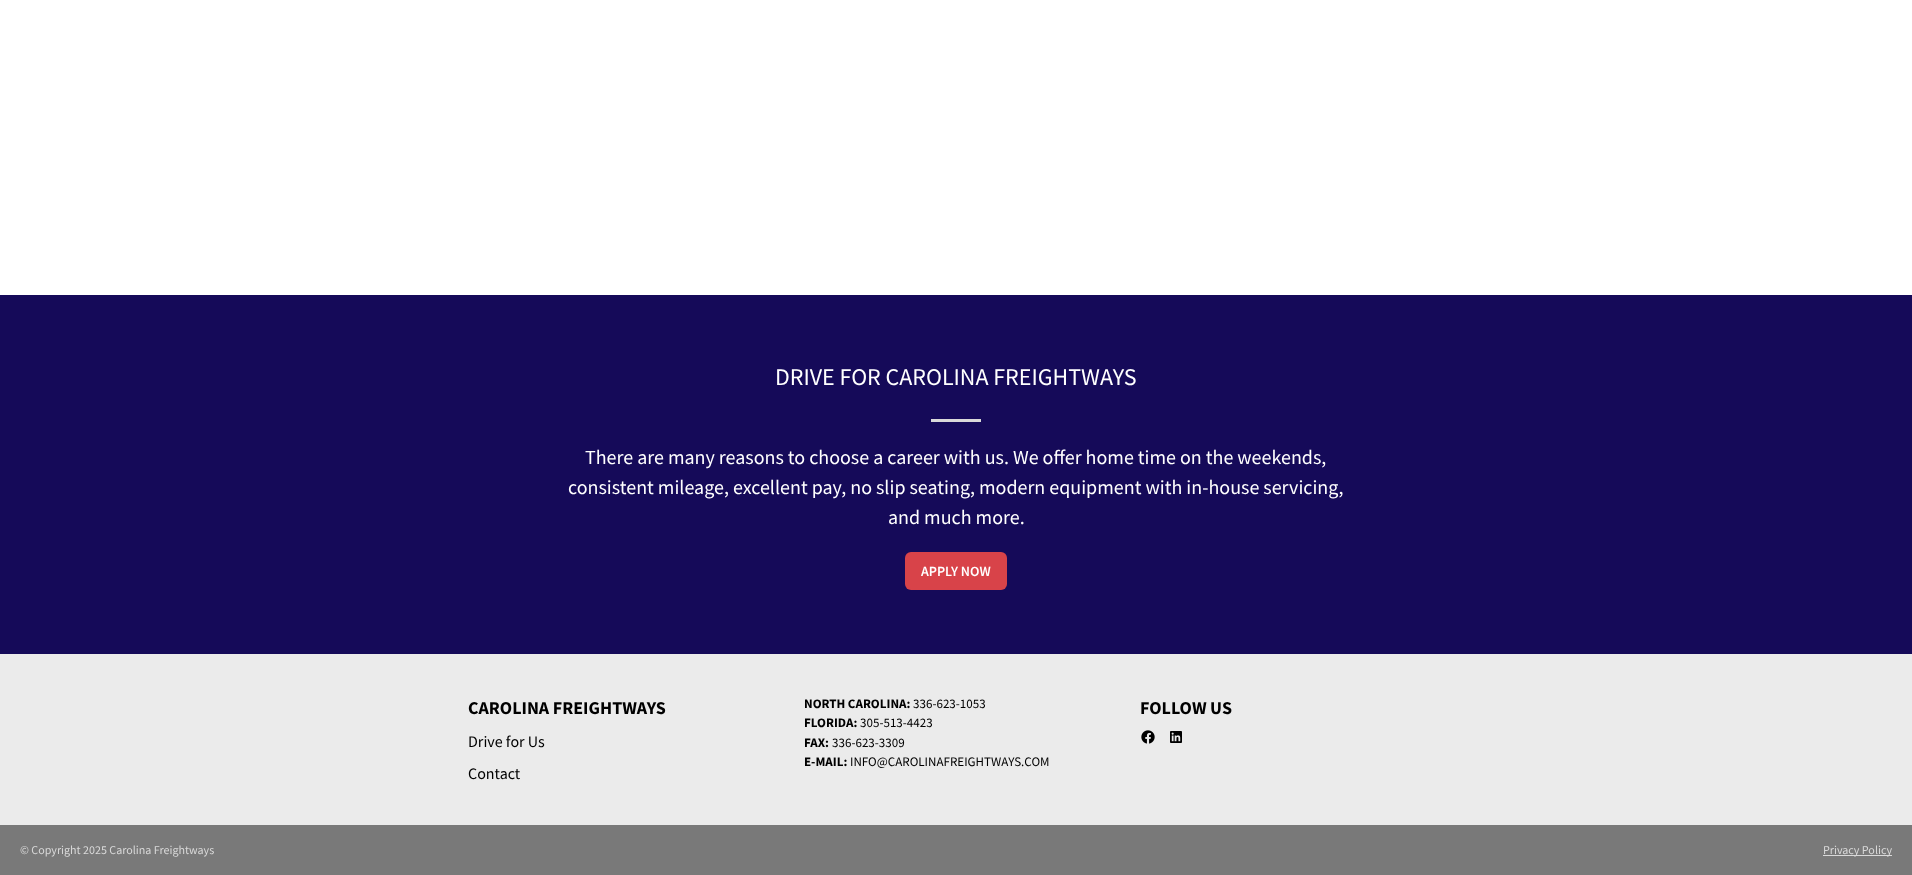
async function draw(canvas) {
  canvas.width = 1912;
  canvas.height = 875;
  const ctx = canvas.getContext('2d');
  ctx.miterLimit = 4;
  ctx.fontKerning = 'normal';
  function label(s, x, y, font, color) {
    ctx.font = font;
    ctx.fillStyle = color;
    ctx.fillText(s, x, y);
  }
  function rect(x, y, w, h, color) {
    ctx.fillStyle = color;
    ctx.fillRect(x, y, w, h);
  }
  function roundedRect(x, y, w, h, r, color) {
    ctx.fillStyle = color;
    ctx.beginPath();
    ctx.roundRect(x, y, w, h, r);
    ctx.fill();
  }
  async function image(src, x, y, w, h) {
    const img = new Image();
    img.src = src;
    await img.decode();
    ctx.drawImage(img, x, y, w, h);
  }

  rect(0, 0, 1912, 875, '#fff');
  rect(0, 295, 1912, 359, '#150a59');
  label('DRIVE FOR CAROLINA FREIGHTWAYS', 775, 385, '24px Source Sans Pro', '#fff');
  rect(931, 419, 50, 3, '#d9d9d9');
  label('There are many reasons to choose a career with us. We offer home time on the weekends,', 585, 464, '20px Source Sans Pro', '#fff');
  label('consistent mileage, excellent pay, no slip seating, modern equipment with in-house servicing,', 568, 494, '20px Source Sans Pro', '#fff');
  label('and much more.', 888, 524, '20px Source Sans Pro', '#fff');
  roundedRect(905, 552, 102, 38, 6, '#d84349');
  label('APPLY NOW', 921, 576, '600 14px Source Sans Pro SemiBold', '#fff');
  rect(0, 654, 1912, 171, '#ebebeb');
  label('CAROLINA FREIGHTWAYS', 468, 714, 'bold 18px Source Sans Pro', '#000');
  label('Drive for Us', 468, 747, '16px Source Sans Pro', '#000');
  label('Contact', 468, 779, '16px Source Sans Pro', '#000');
  label('NORTH CAROLINA:', 804, 708, 'bold 13px Source Sans Pro', '#000');
  label('336-623-1053', 913, 708, '13px Source Sans Pro', '#000');
  label('FLORIDA:', 804, 727, 'bold 13px Source Sans Pro', '#000');
  label('305-513-4423', 860, 727, '13px Source Sans Pro', '#000');
  label('FAX:', 804, 747, 'bold 13px Source Sans Pro', '#000');
  label('336-623-3309', 832, 747, '13px Source Sans Pro', '#000');
  label('E-MAIL:', 804, 766, 'bold 13px Source Sans Pro', '#000');
  label('INFO@CAROLINAFREIGHTWAYS.COM', 850, 766, '13px Source Sans Pro', '#000');
  label('FOLLOW US', 1140, 714, 'bold 18px Source Sans Pro', '#000');
  await image('assets/img1.png', 1141, 730, 14, 14);
  await image('assets/img2.png', 1170, 731, 12, 12);
  rect(0, 825, 1912, 50, '#797979');
  label('© Copyright 2025 Carolina Freightways', 20, 854, '12px Source Sans Pro', '#d9d9d9');
  rect(1823, 855, 69, 1, '#d9d9d9');
  label('Privacy Policy', 1823, 854, '12px Source Sans Pro', '#d9d9d9');
}

draw(document.querySelector('canvas'));
